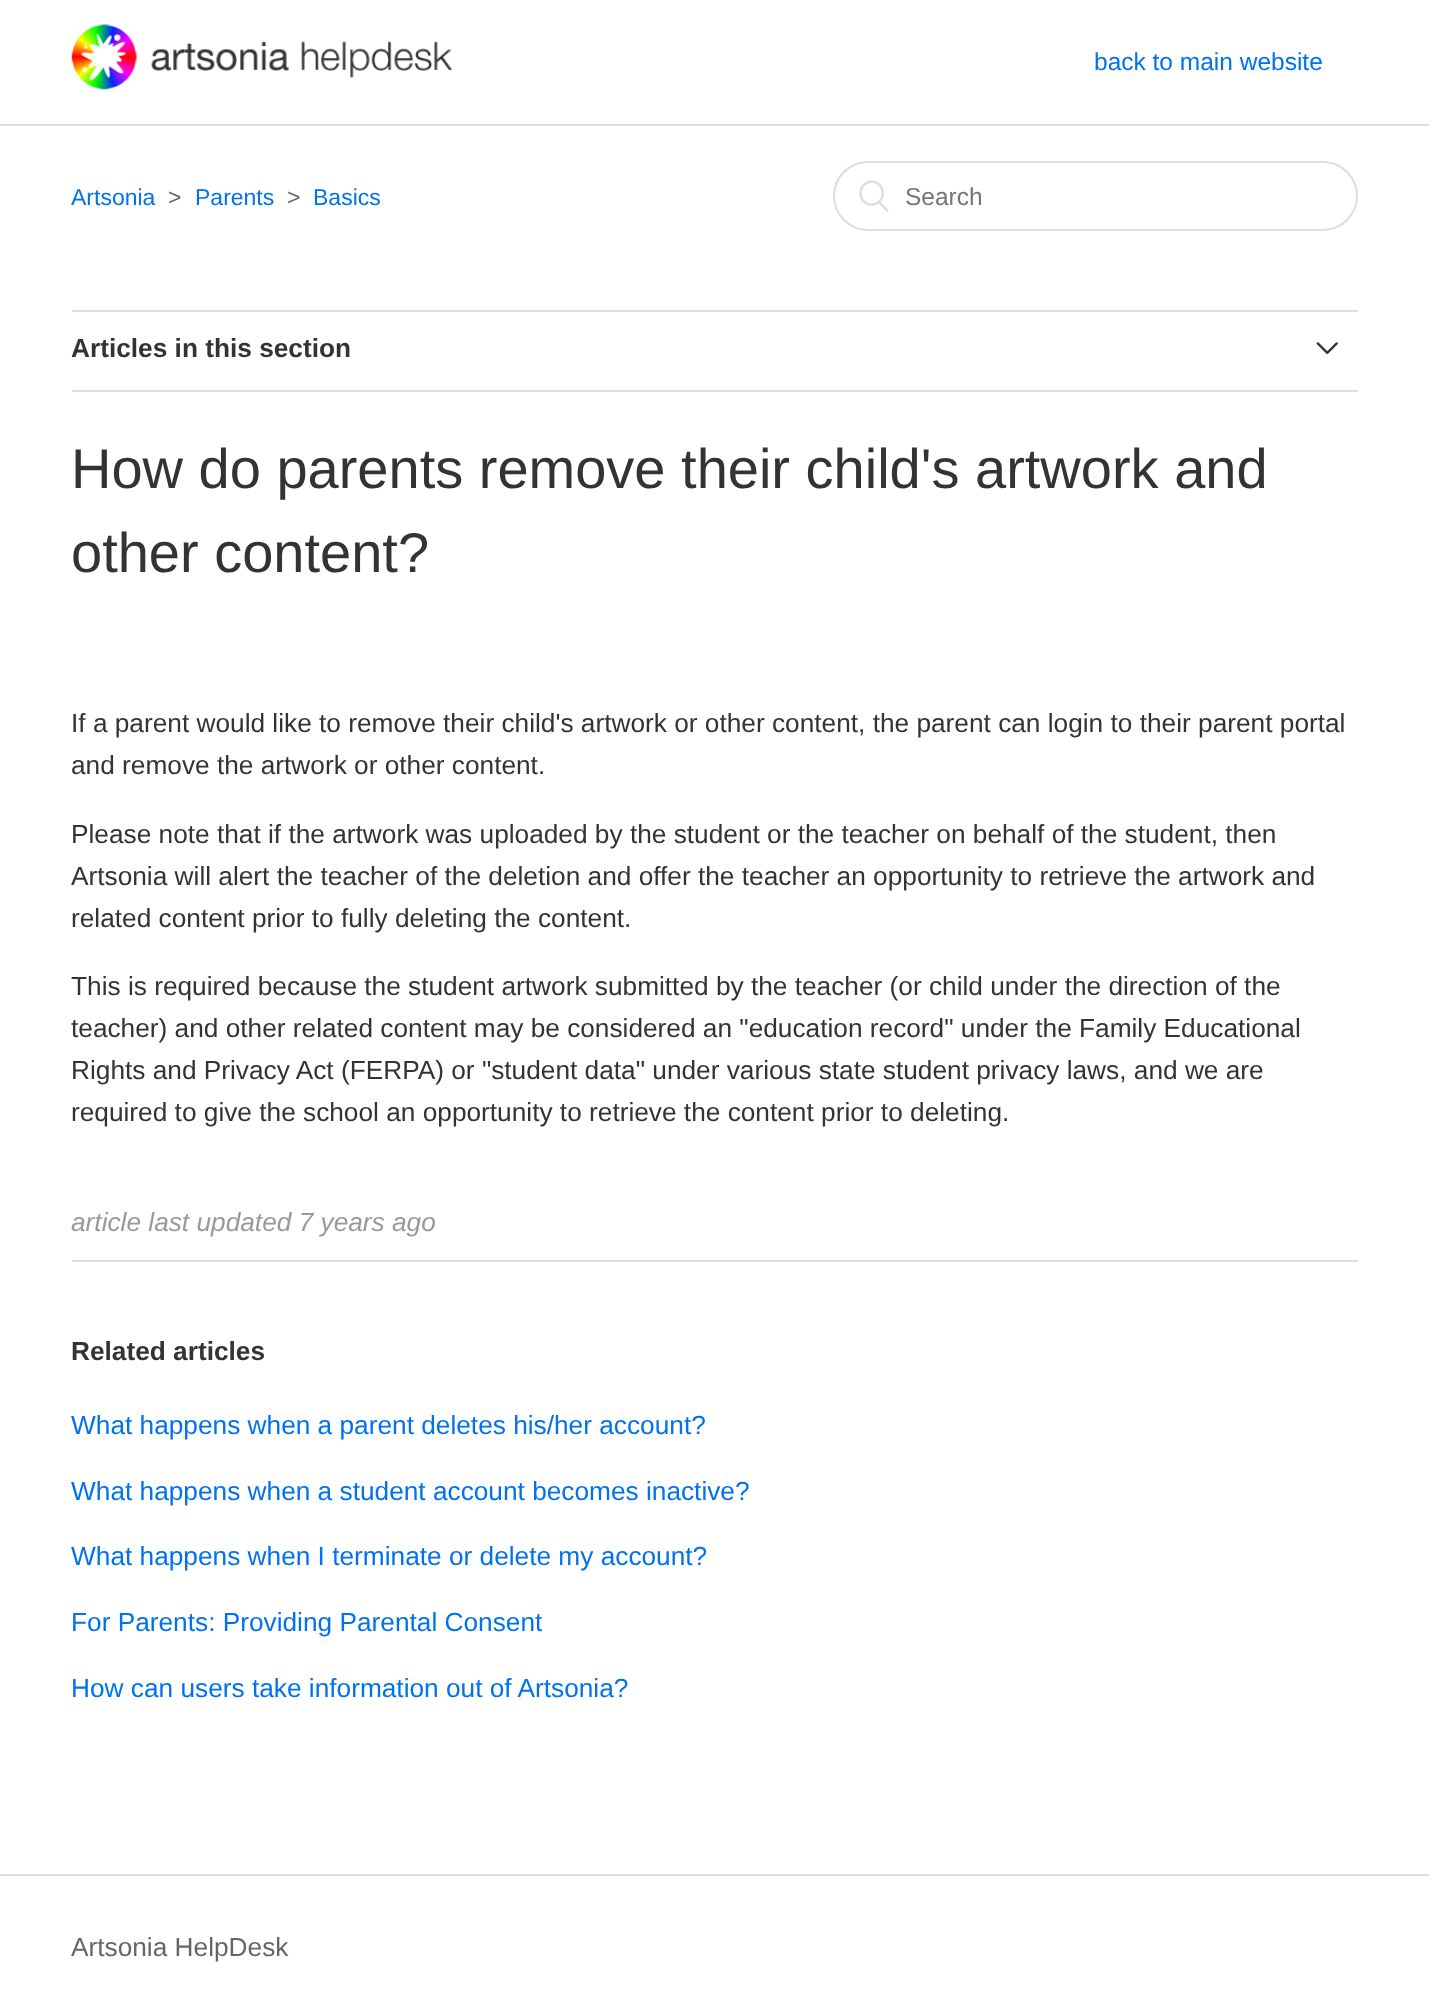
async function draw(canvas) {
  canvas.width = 1429;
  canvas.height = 1996;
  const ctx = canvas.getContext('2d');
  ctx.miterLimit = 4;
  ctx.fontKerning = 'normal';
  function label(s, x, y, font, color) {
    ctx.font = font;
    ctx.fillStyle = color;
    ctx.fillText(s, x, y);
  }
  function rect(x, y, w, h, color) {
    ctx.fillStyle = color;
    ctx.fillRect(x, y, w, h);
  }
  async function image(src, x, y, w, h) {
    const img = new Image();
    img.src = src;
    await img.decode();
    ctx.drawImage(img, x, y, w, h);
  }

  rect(0, 0, 1429, 1996, '#fff');
  await image('assets/img1.png', 71, 24, 382, 66);
  label('back to main website', 1094, 70, '24.5px Liberation Sans', '#0072ef');
  rect(0, 124, 1429, 2, '#ddd');
  label('Artsonia', 71, 205, '23px Liberation Sans', '#0072ef');
  label('>', 168, 205, '23px Liberation Sans', '#666');
  label('Parents', 195, 205, '23px Liberation Sans', '#0072ef');
  label('>', 287, 205, '23px Liberation Sans', '#666');
  label('Basics', 313, 205, '23px Liberation Sans', '#0072ef');
  ctx.beginPath();
  ctx.roundRect(834, 162, 523, 68, 34);
  ctx.strokeStyle = '#ddd';
  ctx.lineWidth = 2;
  ctx.stroke();
  await image('assets/img2.png', 859, 180, 30, 32);
  label('Search', 905, 205, '24.5px Liberation Sans', '#757575');
  rect(72, 310, 1286, 2, '#ddd');
  rect(72, 390, 1286, 2, '#ddd');
  label('Articles in this section', 71, 357, 'bold 26.25px Liberation Sans', '#333');
  await image('assets/img3.png', 1316, 342, 22, 12);
  label('How do parents remove their child\'s artwork and', 71, 488, '56px Liberation Sans', '#333');
  label('other content?', 71, 572, '56px Liberation Sans', '#333');
  label('If a parent would like to remove their child\'s artwork or other content, the parent can login to their parent portal', 71, 732, '26.25px Liberation Sans', '#333');
  label('and remove the artwork or other content.', 71, 774, '26.25px Liberation Sans', '#333');
  label('Please note that if the artwork was uploaded by the student or the teacher on behalf of the student, then', 71, 843, '26.25px Liberation Sans', '#333');
  label('Artsonia will alert the teacher of the deletion and offer the teacher an opportunity to retrieve the artwork and', 71, 885, '26.25px Liberation Sans', '#333');
  label('related content prior to fully deleting the content.', 71, 927, '26.25px Liberation Sans', '#333');
  label('This is required because the student artwork submitted by the teacher (or child under the direction of the', 71, 995, '26.25px Liberation Sans', '#333');
  label('teacher) and other related content may be considered an "education record" under the Family Educational', 71, 1037, '26.25px Liberation Sans', '#333');
  label('Rights and Privacy Act (FERPA) or "student data" under various state student privacy laws, and we are', 71, 1079, '26.25px Liberation Sans', '#333');
  label('required to give the school an opportunity to retrieve the content prior to deleting.', 71, 1121, '26.25px Liberation Sans', '#333');
  label('article last updated 7 years ago', 71, 1231, 'italic 26.25px Liberation Sans', '#999');
  rect(72, 1260, 1286, 2, '#ddd');
  label('Related articles', 71, 1360, 'bold 26.25px Liberation Sans', '#333');
  label('What happens when a parent deletes his/her account?', 71, 1434, '26.25px Liberation Sans', '#0072ef');
  label('What happens when a student account becomes inactive?', 71, 1500, '26.25px Liberation Sans', '#0072ef');
  label('What happens when I terminate or delete my account?', 71, 1565, '26.25px Liberation Sans', '#0072ef');
  label('For Parents: Providing Parental Consent', 71, 1631, '26.25px Liberation Sans', '#0072ef');
  label('How can users take information out of Artsonia?', 71, 1697, '26.25px Liberation Sans', '#0072ef');
  rect(0, 1874, 1429, 2, '#ddd');
  label('Artsonia HelpDesk', 71, 1956, '26.25px Liberation Sans', '#666');
}

draw(document.querySelector('canvas'));
